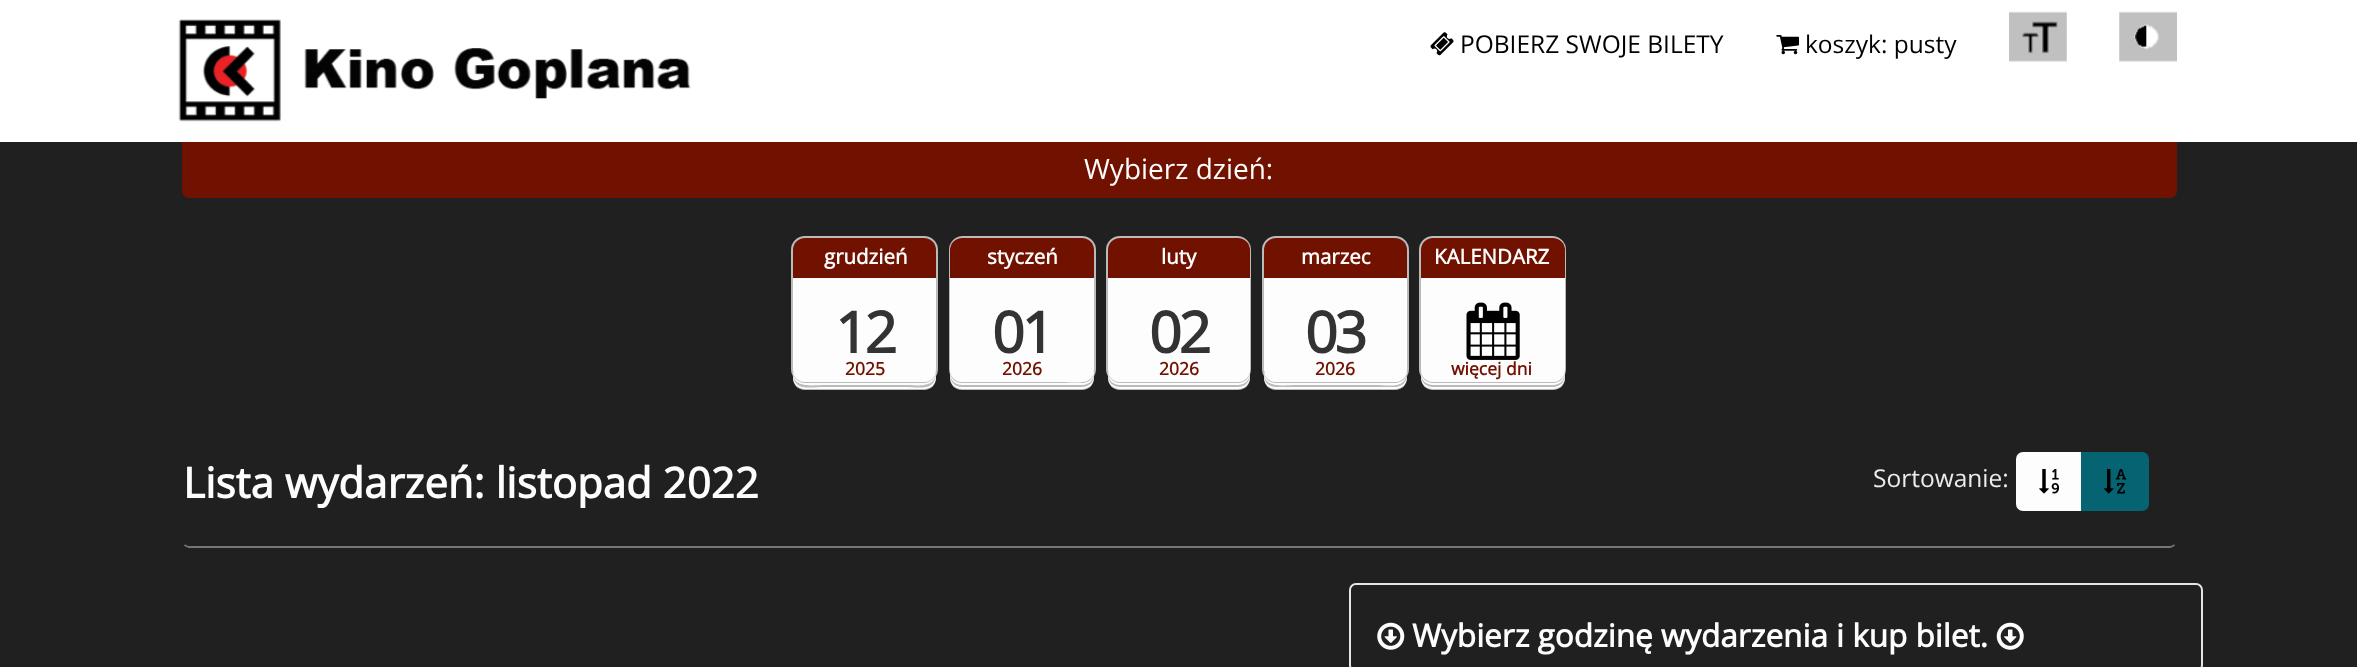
async function draw(canvas) {
  canvas.width = 2357;
  canvas.height = 667;
  const ctx = canvas.getContext('2d');
  ctx.miterLimit = 4;
  ctx.fontKerning = 'normal';
  function label(s, x, y, font, color) {
    ctx.font = font;
    ctx.fillStyle = color;
    ctx.fillText(s, x, y);
  }
  function rect(x, y, w, h, color) {
    ctx.fillStyle = color;
    ctx.fillRect(x, y, w, h);
  }
  function roundedRect(x, y, w, h, r, color) {
    ctx.fillStyle = color;
    ctx.beginPath();
    ctx.roundRect(x, y, w, h, r);
    ctx.fill();
  }
  async function image(src, x, y, w, h) {
    const img = new Image();
    img.src = src;
    await img.decode();
    ctx.drawImage(img, x, y, w, h);
  }
  let path;

  rect(0, 0, 2357, 667, '#202020');
  ctx.fillStyle = '#711100';
  ctx.beginPath();
  ctx.roundRect(182, 140, 1995, 58, [0, 0, 7, 7]);
  ctx.fill();
  rect(0, 0, 2357, 142, '#fff');
  await image('assets/img1.png', 178, 19, 513, 103);
  await image('assets/img2.png', 1430, 32, 24, 24);
  label('POBIERZ SWOJE BILETY', 1460, 53, '24.5px Open Sans', '#000');
  await image('assets/img3.png', 1776, 35, 23, 20);
  label('koszyk: pusty', 1805, 53, '24.5px Open Sans', '#000');
  await image('assets/img4.png', 2009, 11, 58, 51);
  await image('assets/img5.png', 2119, 11, 58, 51);
  label('Wybierz dzień:', 1084, 179, '28px Open Sans', '#fdfdfd');
  ctx.beginPath();
  ctx.roundRect(792, 237, 145, 145, 13);
  ctx.strokeStyle = '#bbb';
  ctx.lineWidth = 2;
  ctx.stroke();
  ctx.fillStyle = '#bbb';
  path = new Path2D('M793 372V378C793 385 798 390 805 390H924C931 390 936 385 936 378V372C935 377 930 382 924 382H805C799 382 794 377 793 372Z');
  ctx.fill(path);
  ctx.fillStyle = '#fdfdfd';
  path = new Path2D('M793 372V377C793 384 798 389 805 389H924C931 389 936 384 936 377V372C935 377 930 382 924 382H805C799 382 794 377 793 372Z');
  ctx.fill(path);
  ctx.fillStyle = '#bbb';
  path = new Path2D('M793 372C793 392 809 387 825 387H904C920 387 936 392 936 372C935 377 930 382 924 382H805C799 382 794 377 793 372Z');
  ctx.fill(path);
  ctx.fillStyle = '#fdfdfd';
  path = new Path2D('M793 372C793 389 813 385 825 385H904C916 385 936 389 936 372C935 377 930 382 924 382H805C799 382 794 377 793 372Z');
  ctx.fill(path);
  ctx.fillStyle = '#bbb';
  path = new Path2D('M793 372C793 378 799 383 805 383H924C930 383 936 378 936 372C935 377 930 382 924 382H805C799 382 794 377 793 372Z');
  ctx.fill(path);
  roundedRect(793, 238, 143, 144, 12, '#fdfdfd');
  rect(793, 275, 143, 3, '#711100');
  ctx.beginPath();
  ctx.roundRect(793, 238, 143, 37, [12, 12, 0, 0]);
  ctx.fill();
  label('grudzień', 824, 264, 'bold 20.5px Open Sans', '#fdfdfd');
  ctx.letterSpacing = '-3px';
  label('12', 835, 353, 'bold 57px Open Sans', '#333');
  ctx.letterSpacing = '0px';
  label('2025', 845, 375, 'bold 17.5px Open Sans', '#711100');
  ctx.beginPath();
  ctx.roundRect(950, 237, 145, 145, 13);
  ctx.stroke();
  ctx.fillStyle = '#bbb';
  path = new Path2D('M950 257V378C950 385 955 390 962 390H1082C1089 390 1094 385 1094 378V257V369C1094 376 1088 382 1081 382H963C956 382 950 376 950 369Z');
  ctx.fill(path);
  ctx.fillStyle = '#fdfdfd';
  path = new Path2D('M950 255V377C950 384 955 389 962 389H1082C1089 389 1094 384 1094 377V255V369C1094 376 1088 382 1081 382H963C956 382 950 376 950 369Z');
  ctx.fill(path);
  ctx.fillStyle = '#bbb';
  path = new Path2D('M950 253V375C950 382 955 387 962 387H1082C1089 387 1094 382 1094 375V253V369C1094 376 1088 382 1081 382H963C956 382 950 376 950 369Z');
  ctx.fill(path);
  ctx.fillStyle = '#fdfdfd';
  path = new Path2D('M950 252V373C950 380 955 385 962 385H1082C1089 385 1094 380 1094 373V252V369C1094 376 1088 382 1081 382H963C956 382 950 376 950 369Z');
  ctx.fill(path);
  ctx.fillStyle = '#bbb';
  path = new Path2D('M950 249V371C950 378 955 383 962 383H1082C1089 383 1094 378 1094 371V249V372C1091 386 1071 382 1062 382L960 381C946 378 950 358 950 349Z');
  ctx.fill(path);
  roundedRect(950, 238, 144, 144, 12, '#fdfdfd');
  ctx.fillStyle = '#711100';
  path = new Path2D('M950 250V278H1094V248V275H950V248Z');
  ctx.fill(path);
  ctx.beginPath();
  ctx.roundRect(950, 238, 144, 37, [12, 12, 0, 0]);
  ctx.fill();
  label('styczeń', 987, 264, 'bold 20.5px Open Sans', '#fdfdfd');
  ctx.letterSpacing = '-3px';
  label('01', 992, 353, 'bold 57px Open Sans', '#333');
  ctx.letterSpacing = '0px';
  label('2026', 1002, 375, 'bold 17.5px Open Sans', '#711100');
  ctx.beginPath();
  ctx.roundRect(1107, 237, 143, 145, 13);
  ctx.stroke();
  ctx.fillStyle = '#bbb';
  path = new Path2D('M1108 372V378C1108 385 1113 390 1120 390H1238C1245 390 1250 385 1250 378V259V256V369C1250 376 1244 382 1237 382H1120C1114 382 1109 377 1108 372Z');
  ctx.fill(path);
  ctx.fillStyle = '#fdfdfd';
  path = new Path2D('M1108 372V377C1108 384 1113 389 1120 389H1238C1245 389 1250 384 1250 377V257V254V369C1250 376 1244 382 1237 382H1120C1114 382 1109 377 1108 372Z');
  ctx.fill(path);
  ctx.fillStyle = '#bbb';
  path = new Path2D('M1108 372V375C1108 382 1113 387 1120 387H1238C1245 387 1250 382 1250 375V255V252V369C1250 376 1244 382 1237 382H1120C1114 382 1109 377 1108 372Z');
  ctx.fill(path);
  ctx.fillStyle = '#fdfdfd';
  path = new Path2D('M1108 372V373C1108 380 1113 385 1120 385H1238C1245 385 1250 380 1250 373V254V251V369C1250 376 1244 382 1237 382H1120C1114 382 1109 377 1108 372Z');
  ctx.fill(path);
  ctx.fillStyle = '#bbb';
  path = new Path2D('M1108 372C1108 378 1114 383 1120 383H1238C1245 383 1250 378 1250 371V252L1249 248L1250 369C1250 376 1244 382 1237 382H1120C1114 382 1109 377 1108 372Z');
  ctx.fill(path);
  roundedRect(1108, 238, 142, 144, 12, '#fdfdfd');
  ctx.fillStyle = '#711100';
  path = new Path2D('M1108 275V278H1250V250V247V275Z');
  ctx.fill(path);
  ctx.beginPath();
  ctx.roundRect(1108, 238, 142, 37, [12, 12, 0, 0]);
  ctx.fill();
  label('luty', 1161, 264, 'bold 20.5px Open Sans', '#fdfdfd');
  ctx.letterSpacing = '-3px';
  label('02', 1149, 353, 'bold 57px Open Sans', '#333');
  ctx.letterSpacing = '0px';
  label('2026', 1159, 375, 'bold 17.5px Open Sans', '#711100');
  ctx.beginPath();
  ctx.roundRect(1263, 237, 145, 145, 13);
  ctx.stroke();
  ctx.fillStyle = '#bbb';
  path = new Path2D('M1264 373V378C1264 385 1269 390 1276 390H1395C1402 390 1407 385 1407 378V369C1407 376 1401 382 1395 382H1276C1270 382 1266 378 1264 373Z');
  ctx.fill(path);
  ctx.fillStyle = '#fdfdfd';
  path = new Path2D('M1264 373V377C1264 384 1269 389 1276 389H1395C1402 389 1407 384 1407 377V369C1407 376 1401 382 1395 382H1276C1270 382 1266 378 1264 373Z');
  ctx.fill(path);
  ctx.fillStyle = '#bbb';
  path = new Path2D('M1264 373V375C1264 382 1269 387 1276 387H1395C1402 387 1407 382 1407 375V369C1407 376 1401 382 1395 382H1276C1270 382 1266 378 1264 373Z');
  ctx.fill(path);
  ctx.fillStyle = '#fdfdfd';
  path = new Path2D('M1264 373C1264 389 1286 385 1296 385H1375C1392 385 1407 390 1407 369C1407 376 1401 382 1395 382H1276C1270 382 1266 378 1264 373Z');
  ctx.fill(path);
  ctx.fillStyle = '#bbb';
  path = new Path2D('M1264 373C1265 379 1270 383 1276 383H1395C1402 383 1407 378 1407 371V369C1407 376 1401 382 1395 382H1276C1270 382 1266 378 1264 373Z');
  ctx.fill(path);
  roundedRect(1264, 238, 143, 144, 12, '#fdfdfd');
  rect(1264, 275, 143, 3, '#711100');
  ctx.beginPath();
  ctx.roundRect(1264, 238, 143, 37, [12, 12, 0, 0]);
  ctx.fill();
  label('marzec', 1301, 264, 'bold 20.5px Open Sans', '#fdfdfd');
  ctx.letterSpacing = '-3px';
  label('03', 1305, 353, 'bold 57px Open Sans', '#333');
  ctx.letterSpacing = '0px';
  label('2026', 1315, 375, 'bold 17.5px Open Sans', '#711100');
  ctx.beginPath();
  ctx.roundRect(1420, 237, 145, 145, 13);
  ctx.stroke();
  ctx.fillStyle = '#bbb';
  path = new Path2D('M1421 369V378C1421 385 1426 390 1433 390H1553C1560 390 1565 385 1565 378V259L1564 256V369C1564 376 1559 382 1552 382H1433C1427 382 1421 376 1421 369Z');
  ctx.fill(path);
  ctx.fillStyle = '#fdfdfd';
  path = new Path2D('M1421 369V377C1421 384 1426 389 1433 389H1553C1560 389 1565 384 1565 377V257L1564 254V369C1564 376 1559 382 1552 382H1433C1427 382 1421 376 1421 369Z');
  ctx.fill(path);
  ctx.fillStyle = '#bbb';
  path = new Path2D('M1421 369V375C1421 382 1426 387 1433 387H1553C1560 387 1565 382 1565 375V255L1564 252V369C1564 376 1559 382 1552 382H1433C1427 382 1421 376 1421 369Z');
  ctx.fill(path);
  ctx.fillStyle = '#fdfdfd';
  path = new Path2D('M1421 369V373C1421 380 1426 385 1433 385H1553C1560 385 1565 380 1565 373V254L1564 251V369C1564 376 1559 382 1552 382H1433C1427 382 1421 376 1421 369Z');
  ctx.fill(path);
  ctx.fillStyle = '#bbb';
  path = new Path2D('M1421 369V371C1421 378 1426 383 1433 383H1553C1560 383 1565 378 1565 371V252L1564 248V369C1564 376 1559 382 1552 382H1433C1427 382 1421 376 1421 369Z');
  ctx.fill(path);
  roundedRect(1421, 238, 144, 144, 12, '#fdfdfd');
  ctx.fillStyle = '#711100';
  path = new Path2D('M1421 275V278H1565V250L1564 247V275Z');
  ctx.fill(path);
  ctx.beginPath();
  ctx.roundRect(1421, 238, 144, 37, [12, 12, 0, 0]);
  ctx.fill();
  label('KALENDARZ', 1434, 264, 'bold 20.5px Open Sans', '#fdfdfd');
  await image('assets/img6.png', 1466, 302, 54, 58);
  label('więcej dni', 1451, 375, 'bold 17.5px Open Sans', '#711100');
  path = new Path2D('M2174.5 545C2173 546 2171.5 547 2170 547H189C187.5 547 186 546 184.5 545');
  ctx.strokeStyle = '#767676';
  ctx.lineWidth = 1.8;
  ctx.stroke(path);
  label('Lista wydarzeń: listopad 2022', 183, 498, 'bold 42px Open Sans', '#fdfdfd');
  label('Sortowanie:', 1873, 487, '24.5px Open Sans', '#ececec');
  ctx.fillStyle = '#fdfdfd';
  ctx.beginPath();
  ctx.roundRect(2017, 453, 65, 57, [6, 0, 0, 6]);
  ctx.fill();
  ctx.strokeStyle = '#fdfdfd';
  ctx.lineWidth = 2;
  ctx.stroke();
  await image('assets/img7.png', 2039, 469, 21, 25);
  ctx.fillStyle = '#066472';
  ctx.beginPath();
  ctx.roundRect(2082, 453, 66, 57, [0, 6, 6, 0]);
  ctx.fill();
  ctx.strokeStyle = '#066472';
  ctx.stroke();
  await image('assets/img8.png', 2104, 469, 23, 25);
  ctx.beginPath();
  ctx.roundRect(1350, 584, 852, 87, 6);
  ctx.strokeStyle = '#e6e6e6';
  ctx.stroke();
  await image('assets/img9.png', 1377, 622, 28, 28);
  label('Wybierz godzinę wydarzenia i kup bilet.', 1412, 647, 'bold 31.5px Open Sans', '#fdfdfd');
  await image('assets/img10.png', 1996, 622, 28, 28);
}

draw(document.querySelector('canvas'));
